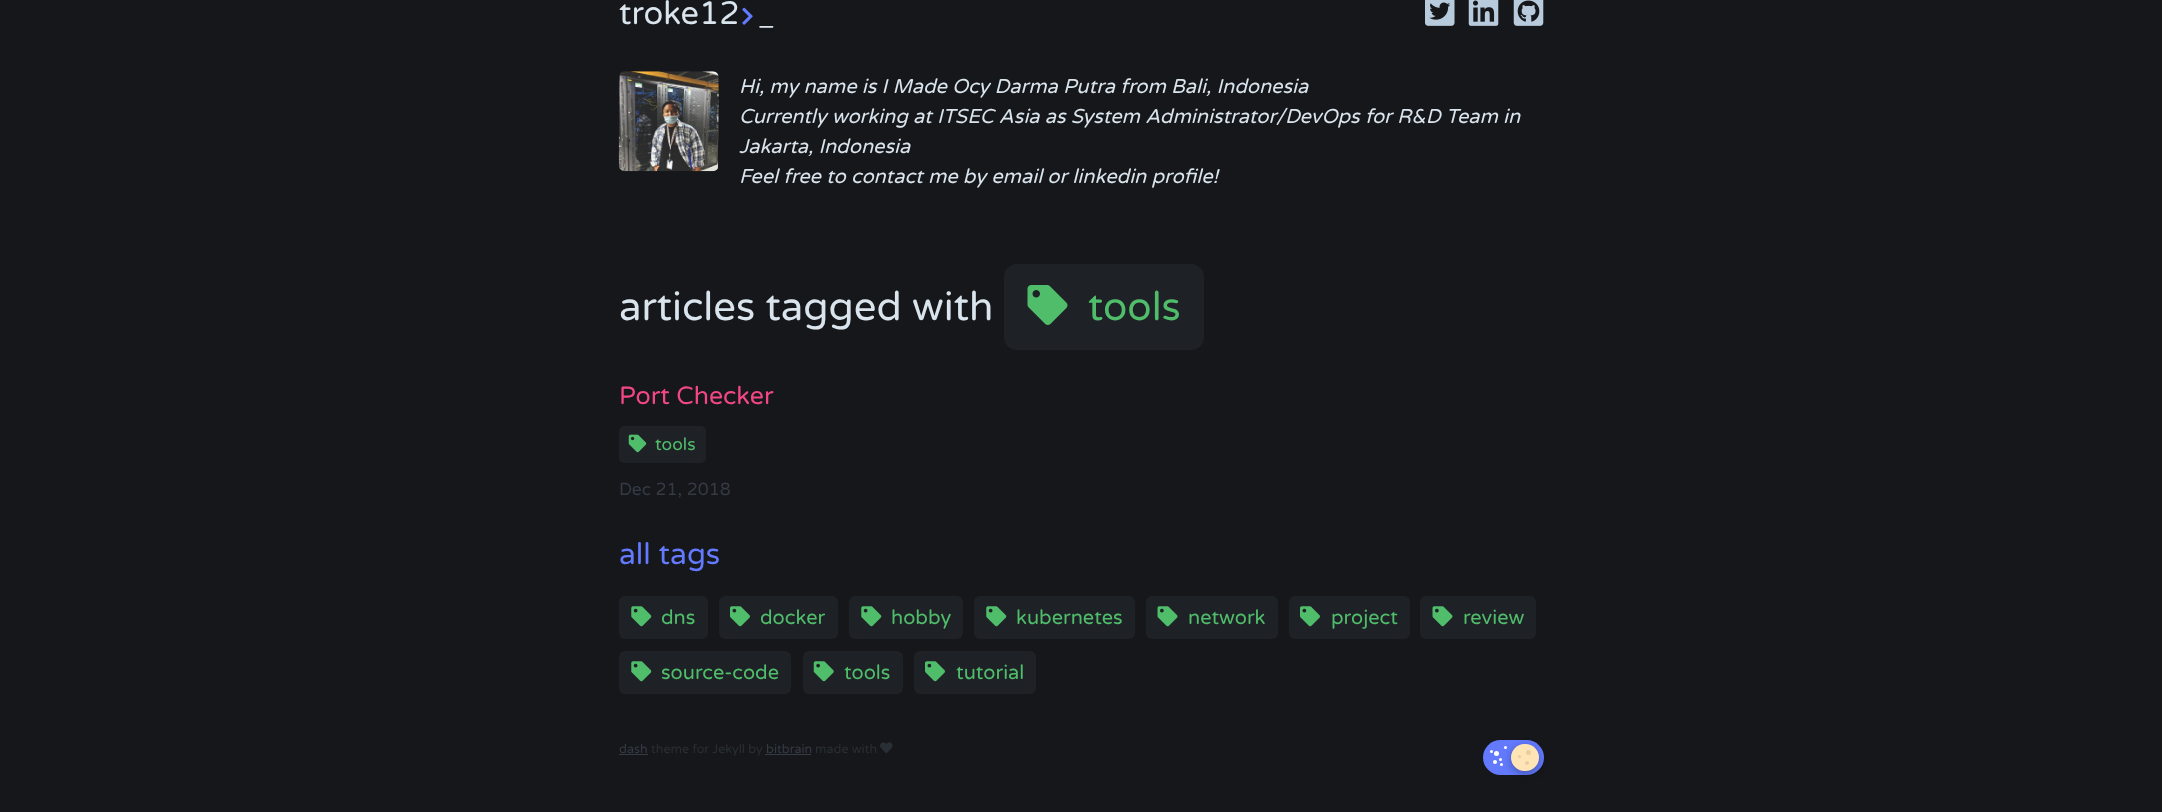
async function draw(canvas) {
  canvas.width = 2162;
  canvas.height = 812;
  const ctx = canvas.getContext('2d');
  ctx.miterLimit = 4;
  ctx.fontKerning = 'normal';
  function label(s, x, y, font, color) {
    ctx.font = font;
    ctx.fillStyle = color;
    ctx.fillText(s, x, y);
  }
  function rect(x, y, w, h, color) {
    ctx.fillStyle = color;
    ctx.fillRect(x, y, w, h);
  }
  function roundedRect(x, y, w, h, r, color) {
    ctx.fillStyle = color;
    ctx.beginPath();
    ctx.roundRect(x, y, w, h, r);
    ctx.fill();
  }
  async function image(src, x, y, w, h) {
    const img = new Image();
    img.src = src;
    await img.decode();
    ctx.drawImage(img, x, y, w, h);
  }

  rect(0, 0, 2162, 812, '#15171a');
  label('troke12', 619, 24, '32.5px Varela Round', '#dae4ed');
  await image('assets/img1.png', 742, 7, 11, 18);
  label('_', 758, 24, '25px Varela Round', '#dae4ed');
  await image('assets/img2.png', 1425, 0, 30, 26);
  await image('assets/img3.png', 1468, 0, 31, 26);
  await image('assets/img4.png', 1513, 0, 31, 26);
  await image('assets/img5.png', 618, 71, 101, 101);
  label('Hi, my name is I Made Ocy Darma Putra from Bali, Indonesia', 739, 93, 'italic 20px Varela Round', '#dae4ed');
  label('Currently working at ITSEC Asia as System Administrator/DevOps for R&D Team in', 739, 123, 'italic 20px Varela Round', '#dae4ed');
  label('Jakarta, Indonesia', 739, 153, 'italic 20px Varela Round', '#dae4ed');
  label('Feel free to contact me by email or linkedin profile!', 739, 183, 'italic 20px Varela Round', '#dae4ed');
  label('articles tagged with', 619, 320, '40px Varela Round', '#dae4ed');
  roundedRect(1004, 264, 200, 86, 13, '#1e2227');
  await image('assets/img6.png', 1027, 285, 41, 40);
  label('tools', 1088, 320, '40px Varela Round', '#50bd6a');
  label('Port Checker', 619, 404, '25px Varela Round', '#f24784');
  roundedRect(619, 426, 87, 37, 5, '#1e2227');
  await image('assets/img7.png', 628, 434, 19, 19);
  label('tools', 655, 450, '17.5px Varela Round', '#50bd6a');
  label('Dec 21, 2018', 619, 495, '17.5px Varela Round', '#343b44');
  label('all tags', 619, 564, '30px Varela Round', '#637afe');
  roundedRect(619, 596, 89, 43, 6, '#1e2227');
  await image('assets/img8.png', 631, 606, 21, 21);
  label('dns', 661, 624, '20px Varela Round', '#50bd6a');
  roundedRect(719, 596, 119, 43, 6, '#1e2227');
  await image('assets/img9.png', 730, 606, 20, 21);
  label('docker', 760, 624, '20px Varela Round', '#50bd6a');
  roundedRect(849, 596, 114, 43, 6, '#1e2227');
  await image('assets/img8.png', 861, 606, 21, 21);
  label('hobby', 891, 624, '20px Varela Round', '#50bd6a');
  roundedRect(974, 596, 161, 43, 6, '#1e2227');
  await image('assets/img8.png', 986, 606, 21, 21);
  label('kubernetes', 1016, 624, '20px Varela Round', '#50bd6a');
  roundedRect(1146, 596, 132, 43, 6, '#1e2227');
  await image('assets/img10.png', 1157, 606, 21, 21);
  label('network', 1188, 624, '20px Varela Round', '#50bd6a');
  roundedRect(1289, 596, 121, 43, 6, '#1e2227');
  await image('assets/img9.png', 1300, 606, 20, 21);
  label('project', 1331, 624, '20px Varela Round', '#50bd6a');
  roundedRect(1420, 596, 116, 43, 6, '#1e2227');
  await image('assets/img10.png', 1432, 606, 21, 21);
  label('review', 1463, 624, '20px Varela Round', '#50bd6a');
  roundedRect(619, 651, 172, 43, 6, '#1e2227');
  await image('assets/img8.png', 631, 661, 21, 21);
  label('source-code', 661, 679, '20px Varela Round', '#50bd6a');
  roundedRect(803, 651, 100, 43, 6, '#1e2227');
  await image('assets/img11.png', 813, 661, 21, 21);
  label('tools', 844, 679, '20px Varela Round', '#50bd6a');
  roundedRect(914, 651, 122, 43, 6, '#1e2227');
  await image('assets/img9.png', 925, 661, 20, 21);
  label('tutorial', 956, 679, '20px Varela Round', '#50bd6a');
  label('dash', 619, 753, '12.5px Varela Round', '#343b44');
  rect(619, 754, 29, 1, '#343b44');
  label('theme for Jekyll by', 651, 753, '12.5px Varela Round', '#292f35');
  label('bitbrain', 766, 753, '12.5px Varela Round', '#343b44');
  rect(765, 754, 46, 1, '#343b44');
  label('made with', 815, 753, '12.5px Varela Round', '#292f35');
  await image('assets/img12.png', 880, 742, 13, 12);
  roundedRect(1483, 740, 61, 35, 17.5, '#637afe');
  ctx.fillStyle = '#fff';
  ctx.beginPath();
  ctx.arc(1505.5, 747.5, 1.5, 0, 2 * Math.PI);
  ctx.fill();
  ctx.beginPath();
  ctx.arc(1500.5, 759.5, 1.5, 0, 2 * Math.PI);
  ctx.fill();
  ctx.beginPath();
  ctx.arc(1501.5, 764.5, 1.5, 0, 2 * Math.PI);
  ctx.fill();
  ctx.fillStyle = '#0000004d';
  ctx.filter = 'blur(4px)';
  ctx.beginPath();
  ctx.roundRect(1511, 746, 28, 28, 14);
  ctx.fill();
  ctx.filter = 'none';
  roundedRect(1511, 744, 28, 27, 13.5, '#ffe5b5');
  ctx.fillStyle = '#e8cda5';
  ctx.beginPath();
  ctx.arc(1528.5, 752.5, 2.5, 0, 2 * Math.PI);
  ctx.fill();
  ctx.beginPath();
  ctx.arc(1519.5, 756.5, 1.5, 0, 2 * Math.PI);
  ctx.fill();
  ctx.beginPath();
  ctx.arc(1527, 763, 2, 0, 2 * Math.PI);
  ctx.fill();
  ctx.fillStyle = '#fff';
  ctx.beginPath();
  ctx.arc(1491.5, 751.5, 1.5, 0, 2 * Math.PI);
  ctx.fill();
  ctx.beginPath();
  ctx.arc(1496.5, 753.5, 2.5, 0, 2 * Math.PI);
  ctx.fill();
  ctx.beginPath();
  ctx.arc(1495, 762, 2, 0, 2 * Math.PI);
  ctx.fill();
}

draw(document.querySelector('canvas'));
